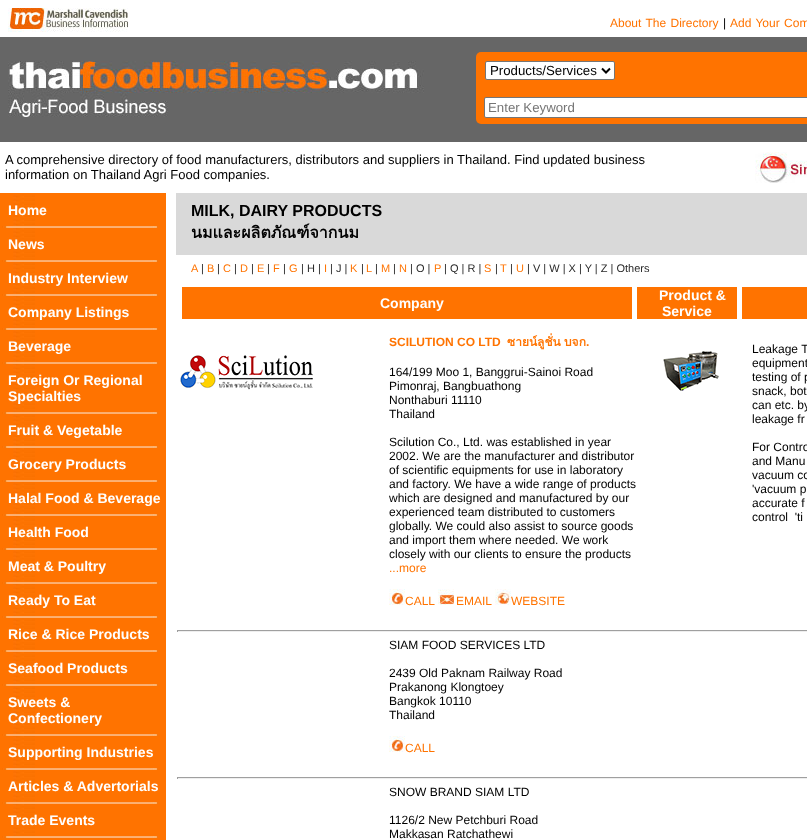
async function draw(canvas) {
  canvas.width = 807;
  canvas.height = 840;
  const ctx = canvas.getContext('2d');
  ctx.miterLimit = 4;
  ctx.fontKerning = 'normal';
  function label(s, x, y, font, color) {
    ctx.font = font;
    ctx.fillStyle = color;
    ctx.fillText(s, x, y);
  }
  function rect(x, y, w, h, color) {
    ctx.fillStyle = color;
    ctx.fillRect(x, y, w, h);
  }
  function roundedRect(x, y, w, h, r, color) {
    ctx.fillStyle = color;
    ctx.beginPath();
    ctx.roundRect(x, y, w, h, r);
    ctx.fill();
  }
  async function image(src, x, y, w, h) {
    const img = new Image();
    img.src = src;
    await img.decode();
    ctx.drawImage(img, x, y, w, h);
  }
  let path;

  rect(0, 0, 807, 840, '#fff');
  await image('assets/img1.png', 8, 8, 120, 24);
  ctx.wordSpacing = '1px';
  label('About The Directory', 610, 27, '12px Liberation Sans', '#ff7300');
  ctx.wordSpacing = '0px';
  label('|', 723, 27, '12px Liberation Sans', '#000');
  ctx.wordSpacing = '1px';
  label('Add Your Com', 730, 27, '12px Liberation Sans', '#ff7300');
  rect(0, 37, 807, 105, '#666');
  await image('assets/img2.png', 8, 61, 416, 56);
  roundedRect(476, 52, 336, 72, 5, '#ff7300');
  ctx.fillStyle = '#fff';
  ctx.beginPath();
  ctx.roundRect(485.5, 61.5, 129, 18, 1.5);
  ctx.fill();
  ctx.strokeStyle = '#767676';
  ctx.stroke();
  path = new Path2D('M602 68.5L606 72.5L610 68.5');
  ctx.strokeStyle = '#000';
  ctx.lineWidth = 2;
  ctx.stroke(path);
  ctx.wordSpacing = '0px';
  label('Products/Services', 490, 75, '13.25px Liberation Sans', '#000');
  ctx.fillStyle = '#fff';
  ctx.beginPath();
  ctx.roundRect(484.5, 97.5, 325, 20, 1.5);
  ctx.fill();
  ctx.strokeStyle = '#767676';
  ctx.lineWidth = 1;
  ctx.stroke();
  label('Enter Keyword', 488, 112, '13.25px Liberation Sans', '#757575');
  label('A comprehensive directory of food manufacturers, distributors and suppliers in Thailand. Find updated business', 5, 164, '13px Liberation Sans', '#000');
  label('information on Thailand Agri Food companies.', 5, 179, '13px Liberation Sans', '#000');
  await image('assets/img3.png', 755, 152, 52, 31);
  rect(0, 193, 166, 647, '#ff7300');
  await image('assets/img4.png', 13, 194, 22, 645);
  await image('assets/img5.png', 2, 226, 157, 2);
  label('Home', 8, 215, 'bold 14px Liberation Sans', '#fff');
  await image('assets/img5.png', 2, 260, 157, 2);
  label('News', 8, 249, 'bold 14px Liberation Sans', '#fff');
  await image('assets/img5.png', 2, 294, 157, 2);
  label('Industry Interview', 8, 283, 'bold 14px Liberation Sans', '#fff');
  await image('assets/img5.png', 2, 328, 157, 2);
  label('Company Listings', 8, 317, 'bold 14px Liberation Sans', '#fff');
  await image('assets/img5.png', 2, 362, 157, 2);
  label('Beverage', 8, 351, 'bold 14px Liberation Sans', '#fff');
  await image('assets/img5.png', 2, 412, 157, 2);
  label('Foreign Or Regional', 8, 385, 'bold 14px Liberation Sans', '#fff');
  label('Specialties', 8, 401, 'bold 14px Liberation Sans', '#fff');
  await image('assets/img5.png', 2, 446, 157, 2);
  label('Fruit & Vegetable', 8, 435, 'bold 14px Liberation Sans', '#fff');
  await image('assets/img5.png', 2, 480, 157, 2);
  label('Grocery Products', 8, 469, 'bold 14px Liberation Sans', '#fff');
  await image('assets/img5.png', 2, 514, 157, 2);
  label('Halal Food & Beverage', 8, 503, 'bold 14px Liberation Sans', '#fff');
  await image('assets/img5.png', 2, 548, 157, 2);
  label('Health Food', 8, 537, 'bold 14px Liberation Sans', '#fff');
  await image('assets/img5.png', 2, 582, 157, 2);
  label('Meat & Poultry', 8, 571, 'bold 14px Liberation Sans', '#fff');
  await image('assets/img5.png', 2, 616, 157, 2);
  label('Ready To Eat', 8, 605, 'bold 14px Liberation Sans', '#fff');
  await image('assets/img5.png', 2, 650, 157, 2);
  label('Rice & Rice Products', 8, 639, 'bold 14px Liberation Sans', '#fff');
  await image('assets/img5.png', 2, 684, 157, 2);
  label('Seafood Products', 8, 673, 'bold 14px Liberation Sans', '#fff');
  await image('assets/img5.png', 2, 734, 157, 2);
  label('Sweets &', 8, 707, 'bold 14px Liberation Sans', '#fff');
  label('Confectionery', 8, 723, 'bold 14px Liberation Sans', '#fff');
  await image('assets/img5.png', 2, 768, 157, 2);
  label('Supporting Industries', 8, 757, 'bold 14px Liberation Sans', '#fff');
  await image('assets/img5.png', 2, 802, 157, 2);
  label('Articles & Advertorials', 8, 791, 'bold 14px Liberation Sans', '#fff');
  await image('assets/img5.png', 2, 836, 157, 2);
  label('Trade Events', 8, 825, 'bold 14px Liberation Sans', '#fff');
  rect(176, 193, 631, 62, '#d9d9d9');
  label('MILK, DAIRY PRODUCTS', 191, 216, 'bold 16px Liberation Sans', '#000');
  label('นมและผลิตภัณฑ์จากนม', 191, 238, 'bold 16px Loma', '#000');
  label('A', 191, 272, '11px Liberation Sans', '#ff7300');
  label('|', 201, 272, '11px Liberation Sans', '#2a2a2a');
  label('B', 207, 272, '11px Liberation Sans', '#ff7300');
  label('|', 217, 272, '11px Liberation Sans', '#2a2a2a');
  label('C', 223, 272, '11px Liberation Sans', '#ff7300');
  label('|', 234, 272, '11px Liberation Sans', '#2a2a2a');
  label('D', 240, 272, '11px Liberation Sans', '#ff7300');
  label('|', 251, 272, '11px Liberation Sans', '#2a2a2a');
  label('E', 257, 272, '11px Liberation Sans', '#ff7300');
  label('|', 267, 272, '11px Liberation Sans', '#2a2a2a');
  label('F', 273, 272, '11px Liberation Sans', '#ff7300');
  label('|', 283, 272, '11px Liberation Sans', '#2a2a2a');
  label('G', 289, 272, '11px Liberation Sans', '#ff7300');
  label('| H |', 301, 272, '11px Liberation Sans', '#2a2a2a');
  label('I', 324, 272, '11px Liberation Sans', '#ff7300');
  label('| J |', 330, 272, '11px Liberation Sans', '#2a2a2a');
  label('K', 350, 272, '11px Liberation Sans', '#ff7300');
  label('|', 361, 272, '11px Liberation Sans', '#2a2a2a');
  label('L', 366, 272, '11px Liberation Sans', '#ff7300');
  label('|', 375, 272, '11px Liberation Sans', '#2a2a2a');
  label('M', 381, 272, '11px Liberation Sans', '#ff7300');
  label('|', 393, 272, '11px Liberation Sans', '#2a2a2a');
  label('N', 399, 272, '11px Liberation Sans', '#ff7300');
  label('| O |', 410, 272, '11px Liberation Sans', '#2a2a2a');
  label('P', 434, 272, '11px Liberation Sans', '#ff7300');
  label('| Q | R |', 444, 272, '11px Liberation Sans', '#2a2a2a');
  label('S', 484, 272, '11px Liberation Sans', '#ff7300');
  label('|', 495, 272, '11px Liberation Sans', '#2a2a2a');
  label('T', 500, 272, '11px Liberation Sans', '#ff7300');
  label('|', 510, 272, '11px Liberation Sans', '#2a2a2a');
  label('U', 516, 272, '11px Liberation Sans', '#ff7300');
  label('| V | W | X | Y | Z | Others', 527, 272, '11px Liberation Sans', '#2a2a2a');
  rect(182, 287, 450, 32, '#ff7300');
  label('Company', 380, 308, 'bold 14px Liberation Sans', '#fff');
  rect(637, 287, 100, 32, '#ff7300');
  label('Product &', 659, 300, 'bold 14px Liberation Sans', '#fff');
  label('Service', 662, 316, 'bold 14px Liberation Sans', '#fff');
  rect(742, 287, 65, 32, '#ff7300');
  await image('assets/img6.png', 180, 355, 133, 35);
  label('SCILUTION CO LTD', 389, 346, 'bold 12px Liberation Sans', '#ff7300');
  label('ซายน์ลูชั่น', 507, 346, 'bold 12px Loma', '#ff7300');
  label('บจก', 564, 346, 'bold 12px Loma', '#ff7300');
  label('.', 586, 346, 'bold 12px Liberation Sans', '#ff7300');
  label('164/199 Moo 1, Banggrui-Sainoi Road', 389, 376, '12px Liberation Sans', '#000');
  label('Pimonraj, Bangbuathong', 389, 390, '12px Liberation Sans', '#000');
  label('Nonthaburi 11110', 389, 404, '12px Liberation Sans', '#000');
  label('Thailand', 389, 418, '12px Liberation Sans', '#000');
  label('Scilution Co., Ltd. was established in year', 389, 446, '12px Liberation Sans', '#000');
  label('2002. We are the manufacturer and distributor', 389, 460, '12px Liberation Sans', '#000');
  label('of scientific equipments for use in laboratory', 389, 474, '12px Liberation Sans', '#000');
  label('and factory. We have a wide range of products', 389, 488, '12px Liberation Sans', '#000');
  label('which are designed and manufactured by our', 389, 502, '12px Liberation Sans', '#000');
  label('experienced team distributed to customers', 389, 516, '12px Liberation Sans', '#000');
  label('globally. We could also assist to source goods', 389, 530, '12px Liberation Sans', '#000');
  label('and import them where needed. We work', 389, 544, '12px Liberation Sans', '#000');
  label('closely with our clients to ensure the products', 389, 558, '12px Liberation Sans', '#000');
  label('...more', 389, 572, '12px Liberation Sans', '#ff7300');
  await image('assets/img7.png', 389, 589, 16, 16);
  label('CALL', 405, 605, '12px Liberation Sans', '#ff7300');
  await image('assets/img8.png', 438, 589, 16, 16);
  label('EMAIL', 456, 605, '12px Liberation Sans', '#ff7300');
  await image('assets/img9.png', 495, 589, 16, 16);
  label('WEBSITE', 511, 605, '12px Liberation Sans', '#ff7300');
  await image('assets/img10.png', 663, 351, 56, 40);
  label('Leakage T', 752, 353, '12px Liberation Sans', '#000');
  label('equipment', 752, 367, '12px Liberation Sans', '#000');
  label('testing of p', 752, 381, '12px Liberation Sans', '#000');
  label('snack, bot', 752, 395, '12px Liberation Sans', '#000');
  label('can etc. by', 752, 409, '12px Liberation Sans', '#000');
  label('leakage fr', 752, 423, '12px Liberation Sans', '#000');
  label('For Contro', 752, 451, '12px Liberation Sans', '#000');
  label('and Manu', 752, 465, '12px Liberation Sans', '#000');
  label('vacuum co', 752, 479, '12px Liberation Sans', '#000');
  label('\'vacuum p', 752, 493, '12px Liberation Sans', '#000');
  label('accurate f', 752, 507, '12px Liberation Sans', '#000');
  label('control  \'ti', 752, 521, '12px Liberation Sans', '#000');
  rect(177, 630, 630, 1, '#9f9f9f');
  rect(177, 631, 630, 1, '#eee');
  rect(177, 630, 1, 2, '#9f9f9f');
  label('SIAM FOOD SERVICES LTD', 389, 649, '12px Liberation Sans', '#000');
  label('2439 Old Paknam Railway Road', 389, 677, '12px Liberation Sans', '#000');
  label('Prakanong Klongtoey', 389, 691, '12px Liberation Sans', '#000');
  label('Bangkok 10110', 389, 705, '12px Liberation Sans', '#000');
  label('Thailand', 389, 719, '12px Liberation Sans', '#000');
  await image('assets/img7.png', 389, 736, 16, 16);
  label('CALL', 405, 752, '12px Liberation Sans', '#ff7300');
  rect(177, 777, 630, 1, '#9f9f9f');
  rect(177, 778, 630, 1, '#eee');
  rect(177, 777, 1, 2, '#9f9f9f');
  label('SNOW BRAND SIAM LTD', 389, 796, '12px Liberation Sans', '#000');
  label('1126/2 New Petchburi Road', 389, 824, '12px Liberation Sans', '#000');
  label('Makkasan Ratchathewi', 389, 838, '12px Liberation Sans', '#000');
}

draw(document.querySelector('canvas'));
